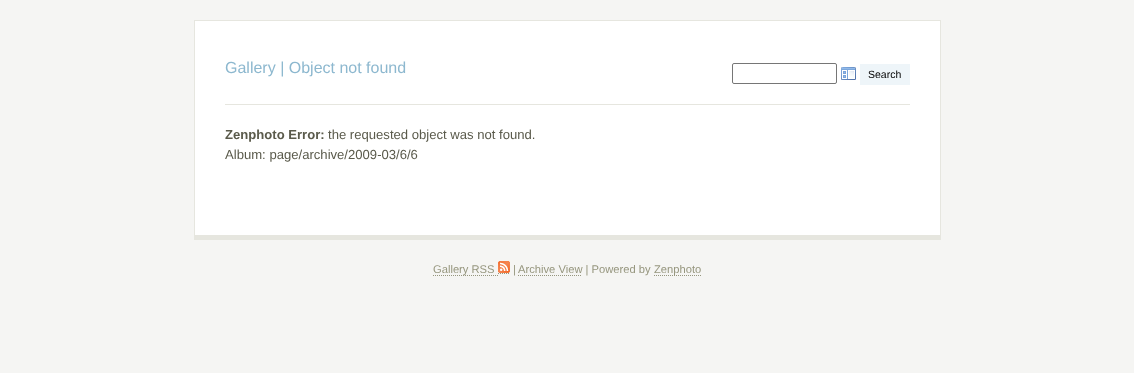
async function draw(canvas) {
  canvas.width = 1134;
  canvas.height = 373;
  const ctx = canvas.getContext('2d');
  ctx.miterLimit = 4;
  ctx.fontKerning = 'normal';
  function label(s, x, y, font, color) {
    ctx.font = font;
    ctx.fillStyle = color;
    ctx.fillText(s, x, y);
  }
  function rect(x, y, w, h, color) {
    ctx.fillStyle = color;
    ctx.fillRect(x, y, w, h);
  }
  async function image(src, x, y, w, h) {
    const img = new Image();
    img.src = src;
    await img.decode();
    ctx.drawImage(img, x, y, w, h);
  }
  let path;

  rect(0, 0, 1134, 373, '#f5f5f3');
  rect(195, 21, 745, 214, '#fff');
  rect(194, 20, 747, 1, '#e6e6df');
  rect(940, 20, 1, 220, '#e6e6df');
  rect(194, 235, 747, 5, '#e6e6df');
  rect(194, 20, 1, 220, '#e6e6df');
  rect(225, 104, 685, 1, '#e6e6df');
  label('Gallery | Object not found', 225, 73, '16px Liberation Sans', '#8db8cf');
  ctx.beginPath();
  ctx.roundRect(732.5, 63.5, 104, 20, 1.5);
  ctx.strokeStyle = '#767676';
  ctx.stroke();
  await image('assets/img1.png', 841, 67, 15, 13);
  rect(860, 64, 50, 21, '#eef5f9');
  label('Search', 868, 78, '10.5px Liberation Sans', '#000');
  label('Zenphoto Error:', 225, 139, 'bold 13.1px Liberation Sans', '#5a5a4b');
  label('the requested object was not found.', 328, 139, '13.1px Liberation Sans', '#5a5a4b');
  label('Album: page/archive/2009-03/6/6', 225, 159, '13.1px Liberation Sans', '#5a5a4b');
  path = new Path2D('M433 275.5H498');
  ctx.strokeStyle = '#96967e';
  ctx.setLineDash([1, 1]);
  ctx.stroke(path);
  label('Gallery RSS', 433, 273, '11.2px Liberation Sans', '#96967e');
  path = new Path2D('M498 273.5H510');
  ctx.stroke(path);
  await image('assets/img2.png', 498, 261, 12, 12);
  label('|', 513, 273, '11.2px Liberation Sans', '#96967e');
  path = new Path2D('M518 275.5H582');
  ctx.stroke(path);
  label('Archive View | Powered by', 518, 273, '11.2px Liberation Sans', '#96967e');
  path = new Path2D('M654 275.5H701');
  ctx.stroke(path);
  label('Zenphoto', 654, 273, '11.2px Liberation Sans', '#96967e');
}

draw(document.querySelector('canvas'));
